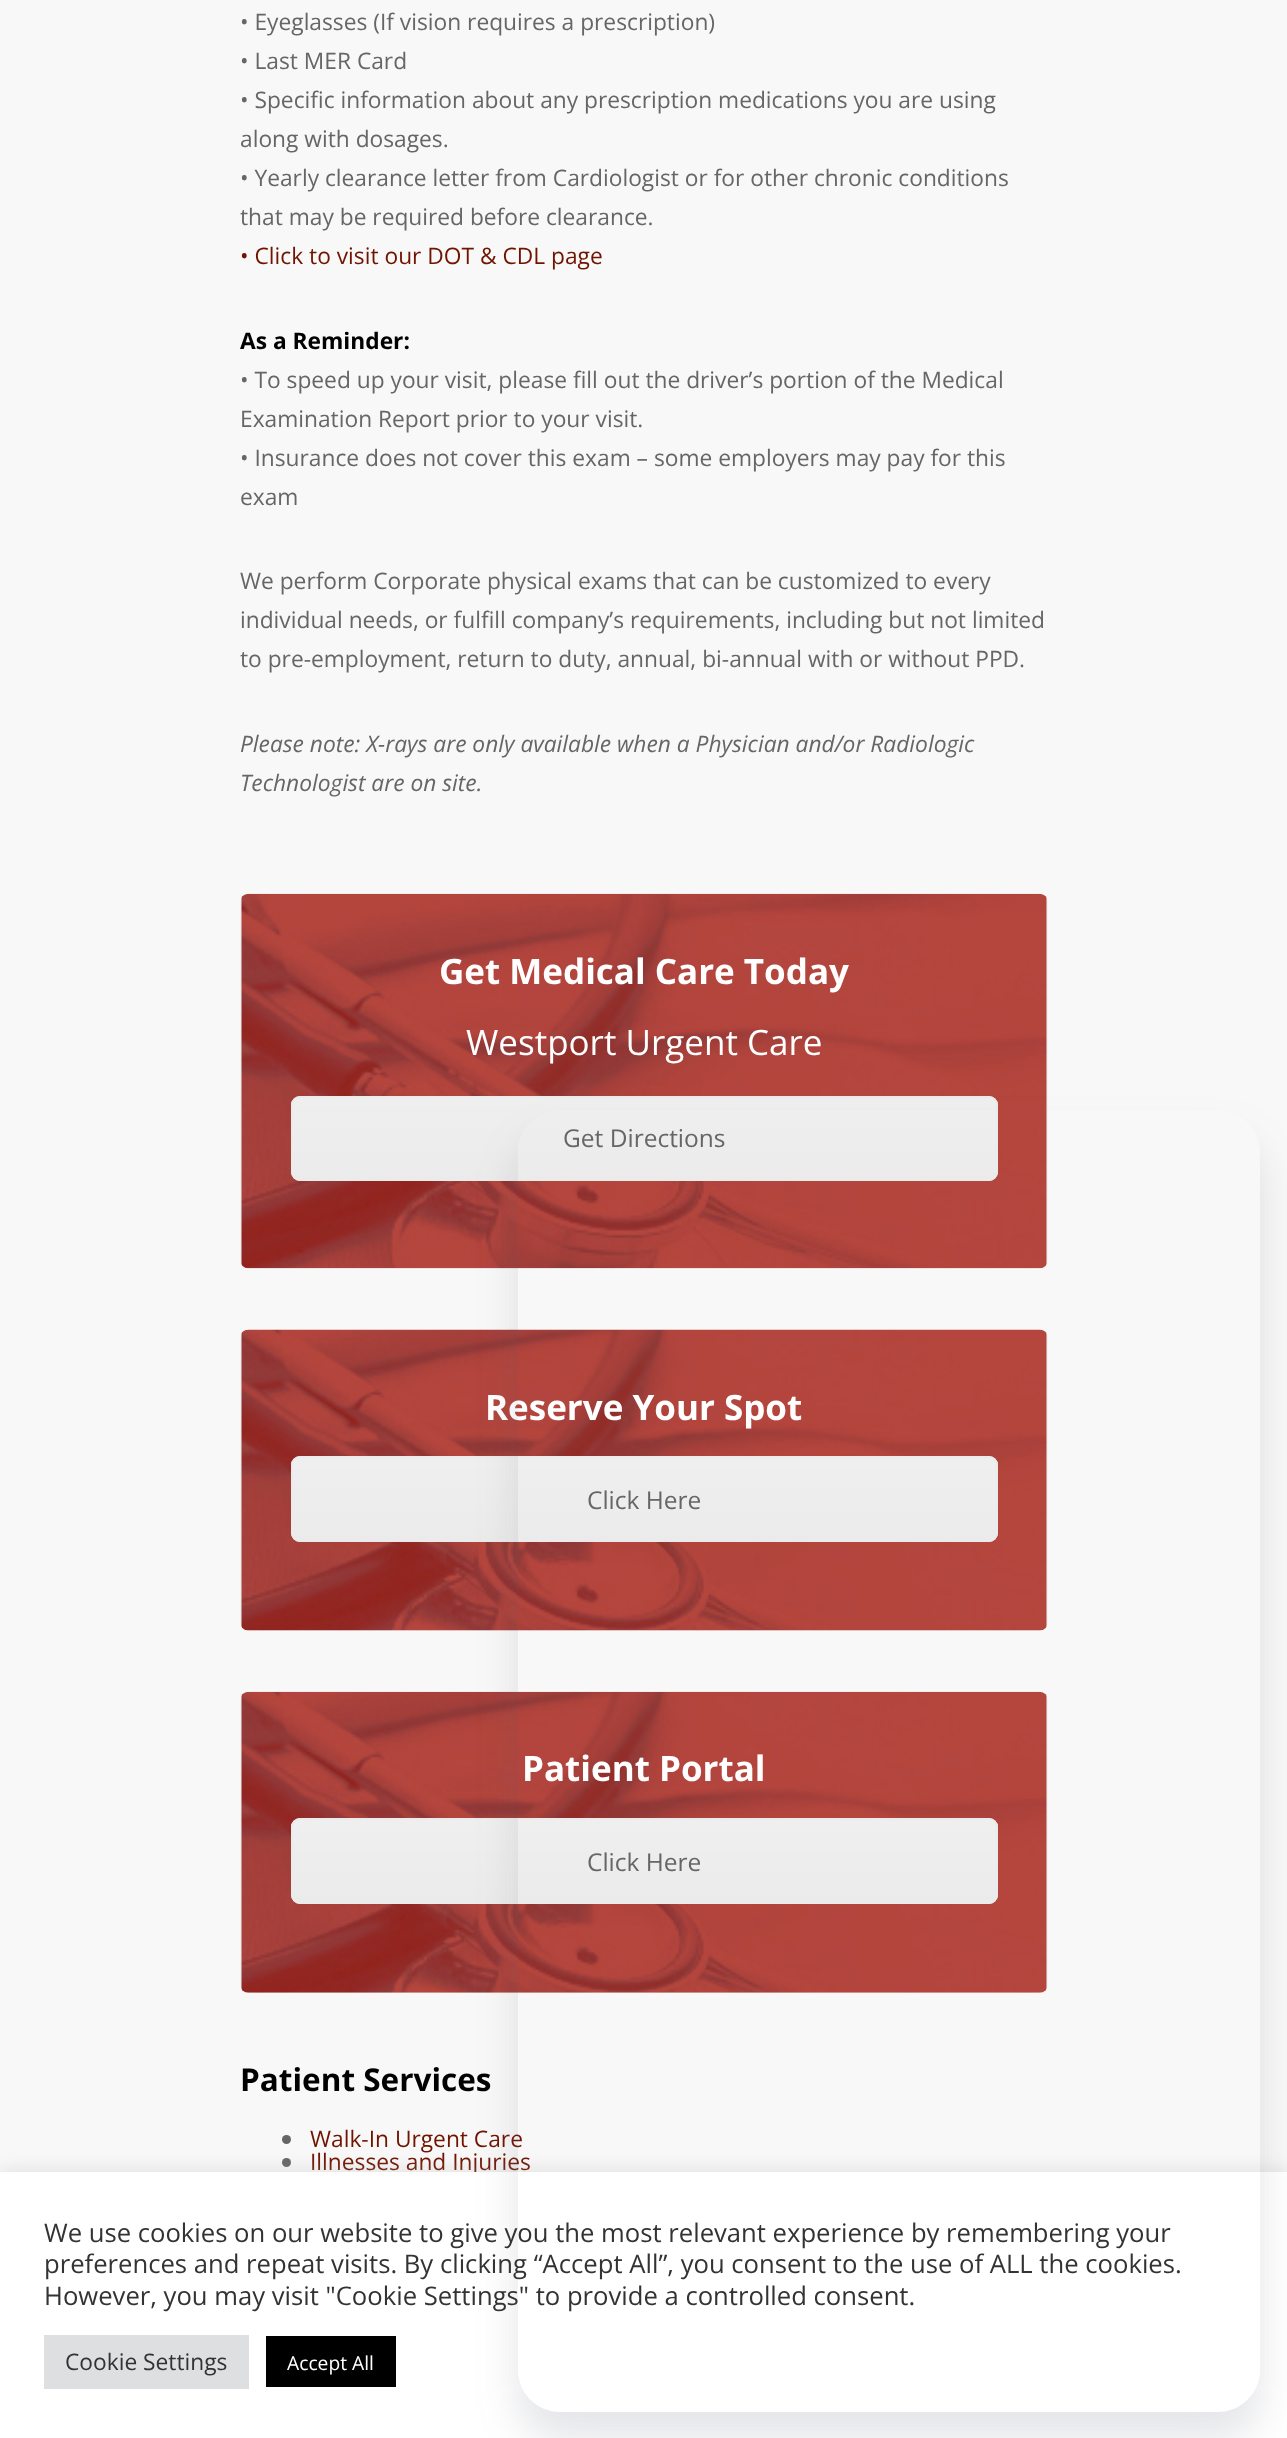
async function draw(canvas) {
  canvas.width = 1287;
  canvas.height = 2438;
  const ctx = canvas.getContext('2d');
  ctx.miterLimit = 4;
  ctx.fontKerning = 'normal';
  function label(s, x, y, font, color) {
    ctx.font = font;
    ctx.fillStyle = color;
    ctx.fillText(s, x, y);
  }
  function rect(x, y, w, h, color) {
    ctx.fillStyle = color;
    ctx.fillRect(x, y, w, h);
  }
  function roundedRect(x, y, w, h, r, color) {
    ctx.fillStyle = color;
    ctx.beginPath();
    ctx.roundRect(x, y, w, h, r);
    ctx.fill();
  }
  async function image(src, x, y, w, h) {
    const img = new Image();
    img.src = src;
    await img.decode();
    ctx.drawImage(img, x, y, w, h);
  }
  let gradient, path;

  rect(0, 0, 1287, 2438, '#f8f8f8');
  label('• Eyeglasses (If vision requires a prescription)', 240, 30, '22.75px Open Sans', '#666');
  label('• Last MER Card', 240, 69, '22.75px Open Sans', '#666');
  label('• Specific information about any prescription medications you are using', 240, 108, '22.75px Open Sans', '#666');
  label('along with dosages.', 240, 147, '22.75px Open Sans', '#666');
  label('• Yearly clearance letter from Cardiologist or for other chronic conditions', 240, 186, '22.75px Open Sans', '#666');
  label('that may be required before clearance.', 240, 225, '22.75px Open Sans', '#666');
  label('• Click to visit our DOT & CDL page', 240, 264, '22.75px Open Sans', '#701400');
  label('As a Reminder:', 240, 349, 'bold 22.75px Open Sans', '#000');
  label('• To speed up your visit, please fill out the driver’s portion of the Medical', 240, 388, '22.75px Open Sans', '#666');
  label('Examination Report prior to your visit.', 240, 427, '22.75px Open Sans', '#666');
  label('• Insurance does not cover this exam – some employers may pay for this', 240, 466, '22.75px Open Sans', '#666');
  label('exam', 240, 505, '22.75px Open Sans', '#666');
  label('We perform Corporate physical exams that can be customized to every', 240, 589, '22.75px Open Sans', '#666');
  label('individual needs, or fulfill company’s requirements, including but not limited', 240, 628, '22.75px Open Sans', '#666');
  label('to pre-employment, return to duty, annual, bi-annual with or without PPD.', 240, 667, '22.75px Open Sans', '#666');
  label('Please note: X-rays are only available when a Physician and/or Radiologic', 240, 752, 'italic 22.75px Open Sans', '#666');
  label('Technologist are on site.', 240, 791, 'italic 22.75px Open Sans', '#666');
  roundedRect(240, 894, 808, 375, 9, '#f0f0f0');
  await image('assets/img1.png', 241, 893, 806, 376);
  label('Get Medical Care Today', 439, 984, 'bold 35px Open Sans', '#fff');
  label('Westport Urgent Care', 466, 1055, '35px Open Sans', '#fff');
  roundedRect(291, 1096, 707, 85, 9, '#ebebeb');
  ctx.save();
  ctx.beginPath();
  ctx.roundRect(291, 1096, 707, 85, 9);
  ctx.clip();
  gradient = ctx.createLinearGradient(644, 1097, 644, 1180);
  gradient.addColorStop(0, '#ffffff33');
  gradient.addColorStop(1, '#ffffff03');
  ctx.fillStyle = gradient;
  ctx.fillRect(291, 1097, 707, 78);
  ctx.restore();
  ctx.beginPath();
  ctx.roundRect(292, 1097, 705, 83, 8);
  ctx.strokeStyle = '#ebebeb';
  ctx.lineWidth = 2;
  ctx.stroke();
  label('Get Directions', 563, 1147, '24.5px Open Sans', '#666');
  roundedRect(240, 1330, 808, 301, 9, '#f0f0f0');
  await image('assets/img2.png', 241, 1329, 806, 302);
  label('Reserve Your Spot', 485, 1420, 'bold 35px Open Sans', '#fff');
  roundedRect(291, 1456, 707, 86, 9, '#ebebeb');
  ctx.save();
  ctx.beginPath();
  ctx.roundRect(291, 1456, 707, 86, 9);
  ctx.clip();
  gradient = ctx.createLinearGradient(644, 1458, 644, 1540);
  gradient.addColorStop(0, '#ffffff33');
  gradient.addColorStop(1, '#ffffff03');
  ctx.fillStyle = gradient;
  ctx.fillRect(291, 1458, 707, 77);
  ctx.restore();
  ctx.beginPath();
  ctx.roundRect(292, 1457, 705, 84, 8);
  ctx.stroke();
  label('Click Here', 587, 1509, '24.5px Open Sans', '#666');
  roundedRect(240, 1692, 808, 301, 9, '#f0f0f0');
  await image('assets/img3.png', 241, 1691, 806, 302);
  label('Patient Portal', 522, 1781, 'bold 35px Open Sans', '#fff');
  roundedRect(291, 1818, 707, 86, 9, '#ebebeb');
  ctx.save();
  ctx.beginPath();
  ctx.roundRect(291, 1818, 707, 86, 9);
  ctx.clip();
  gradient = ctx.createLinearGradient(644, 1820, 644, 1902);
  gradient.addColorStop(0, '#ffffff33');
  gradient.addColorStop(1, '#ffffff03');
  ctx.fillStyle = gradient;
  ctx.fillRect(291, 1820, 707, 77);
  ctx.restore();
  ctx.beginPath();
  ctx.roundRect(292, 1819, 705, 84, 8);
  ctx.stroke();
  label('Click Here', 587, 1871, '24.5px Open Sans', '#666');
  label('Patient Services', 240, 2091, 'bold 31.5px Open Sans', '#000');
  ctx.fillStyle = '#666';
  ctx.beginPath();
  ctx.arc(286.5, 2139.5, 4.5, 0, 2 * Math.PI);
  ctx.fill();
  label('Walk-In Urgent Care', 310, 2147, '22.75px Open Sans', '#701400');
  ctx.fillStyle = '#666';
  ctx.beginPath();
  ctx.arc(286.5, 2162.5, 4.5, 0, 2 * Math.PI);
  ctx.fill();
  label('Illnesses and Injuries', 310, 2170, '22.75px Open Sans', '#701400');
  ctx.fillStyle = '#acabab4d';
  ctx.filter = 'blur(9px)';
  ctx.beginPath();
  ctx.rect(0, 2170, 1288, 268);
  ctx.fill();
  ctx.filter = 'none';
  rect(0, 2172, 1287, 266, '#fff');
  ctx.save();
  path = new Path2D('M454 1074H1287V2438H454ZM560 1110H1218C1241 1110 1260 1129 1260 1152V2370C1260 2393 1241 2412 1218 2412H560C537 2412 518 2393 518 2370V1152C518 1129 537 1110 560 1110Z');
  ctx.clip(path, 'evenodd');
  ctx.fillStyle = '#545f6f29';
  ctx.filter = 'blur(21px)';
  ctx.beginPath();
  ctx.roundRect(518, 1138, 742, 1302, 42);
  ctx.fill();
  ctx.filter = 'none';
  ctx.restore();
  label('We use cookies on our website to give you the most relevant experience by remembering your', 44, 2242, '25.65px Open Sans', '#333');
  label('preferences and repeat visits. By clicking “Accept All”, you consent to the use of ALL the cookies.', 44, 2273, '25.65px Open Sans', '#333');
  label('However, you may visit "Cookie Settings" to provide a controlled consent.', 44, 2305, '25.65px Open Sans', '#333');
  rect(44, 2335, 205, 54, '#dedfe0');
  label('Cookie Settings', 65, 2370, '22.75px Open Sans', '#333');
  rect(266, 2336, 130, 51, '#000');
  label('Accept All', 287, 2370, '19.25px Open Sans', '#fff');
}

draw(document.querySelector('canvas'));
